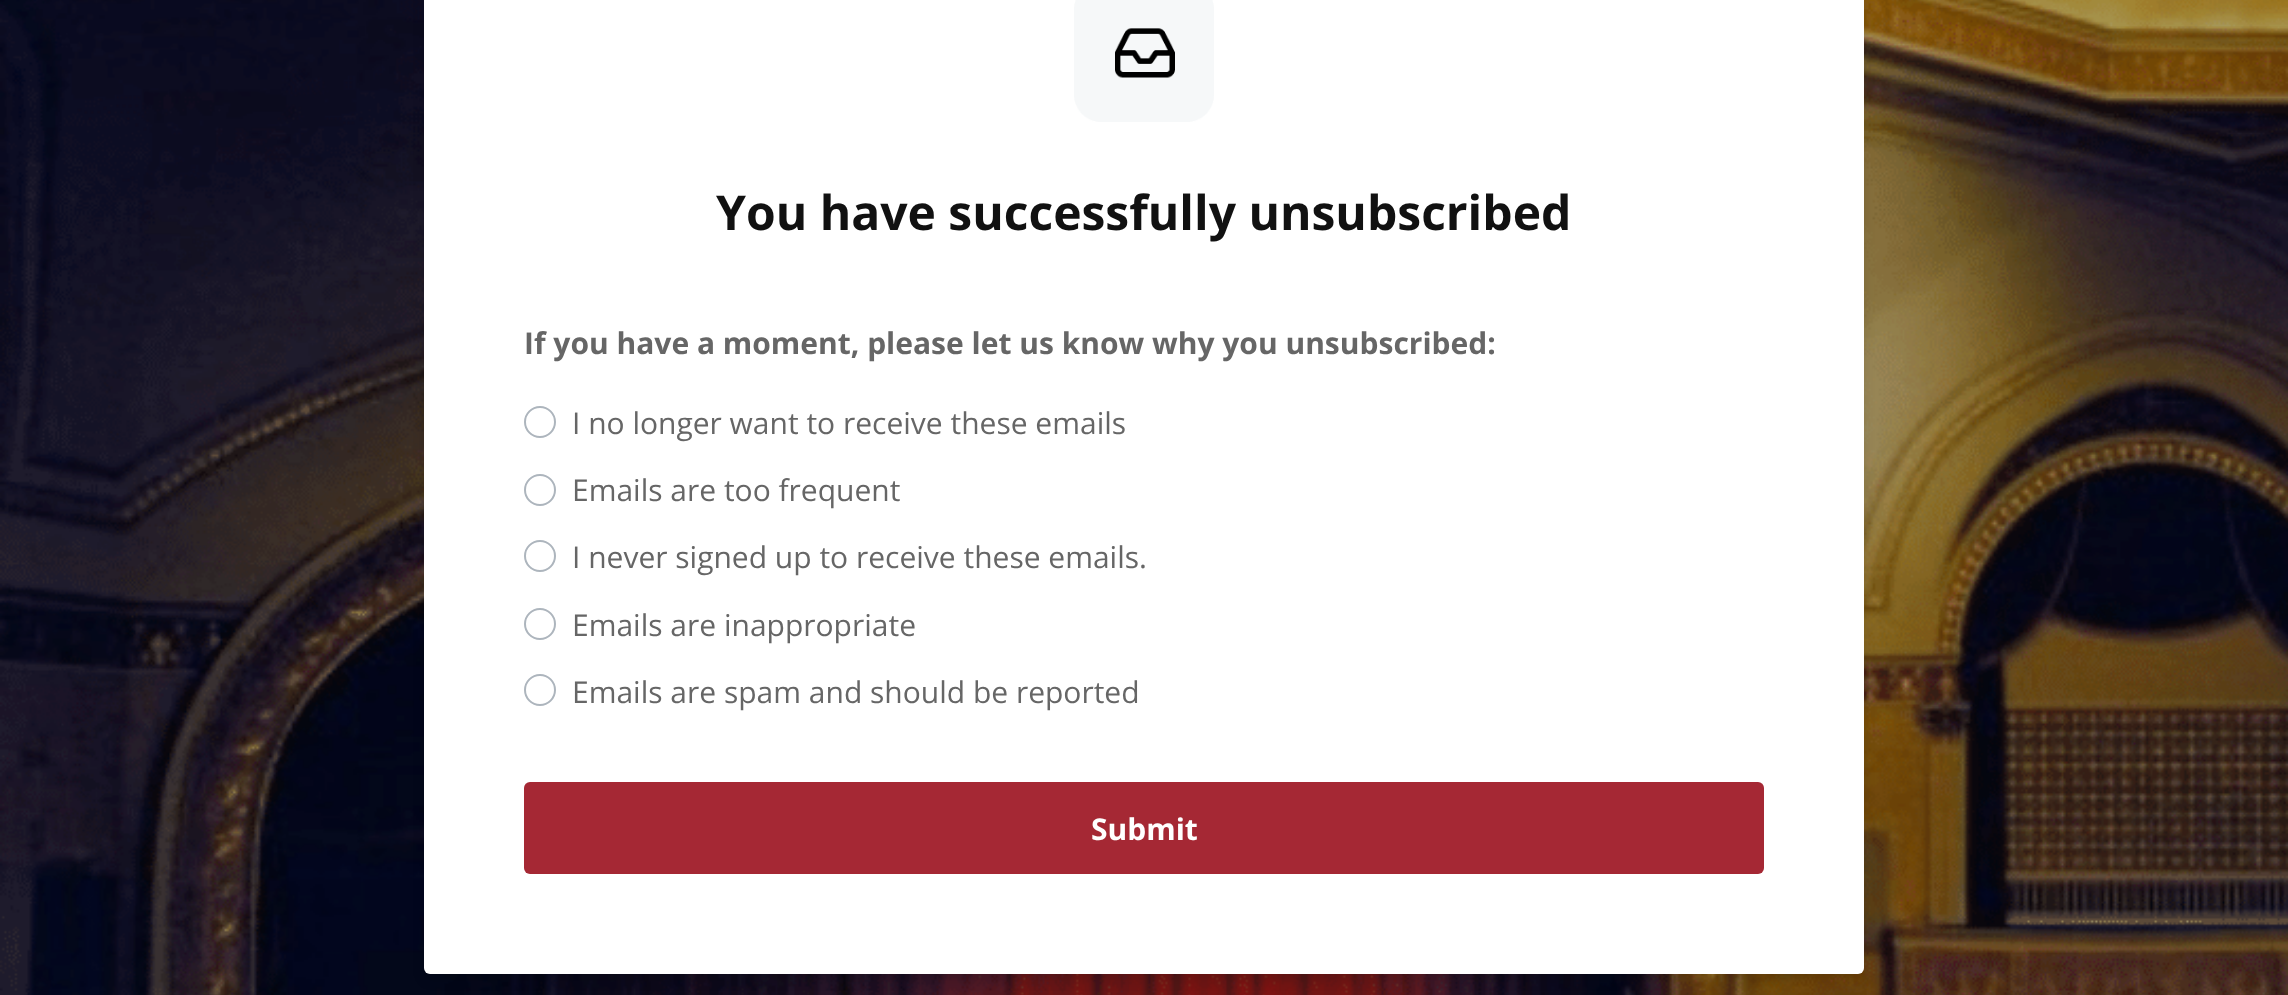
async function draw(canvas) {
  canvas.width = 2288;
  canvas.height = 995;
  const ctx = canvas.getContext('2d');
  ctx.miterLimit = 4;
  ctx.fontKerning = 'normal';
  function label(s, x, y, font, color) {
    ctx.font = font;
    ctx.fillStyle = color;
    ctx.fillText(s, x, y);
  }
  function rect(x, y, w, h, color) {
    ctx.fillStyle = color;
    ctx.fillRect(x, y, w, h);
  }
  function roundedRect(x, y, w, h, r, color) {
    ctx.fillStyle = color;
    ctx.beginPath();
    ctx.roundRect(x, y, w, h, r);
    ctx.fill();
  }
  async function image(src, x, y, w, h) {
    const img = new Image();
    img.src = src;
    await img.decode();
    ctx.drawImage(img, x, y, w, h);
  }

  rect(0, 0, 2288, 995, '#fff');
  await image('assets/img1.png', 0, 0, 2288, 995);
  ctx.fillStyle = '#0000001a';
  ctx.filter = 'blur(6px)';
  ctx.beginPath();
  ctx.roundRect(424, -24, 1440, 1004, 6);
  ctx.fill();
  ctx.filter = 'none';
  roundedRect(424, -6, 1440, 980, 6, '#fff');
  await image('assets/img2.png', 1074, 0, 140, 122);
  label('You have successfully unsubscribed', 716, 230, 'bold 48px Open Sans', '#111');
  label('If you have a moment, please let us know why you unsubscribed:', 524, 354, 'bold 30px Open Sans', '#666');
  ctx.beginPath();
  ctx.arc(540, 422, 15, 0, 2 * Math.PI);
  ctx.strokeStyle = '#adb5bd';
  ctx.lineWidth = 2;
  ctx.stroke();
  label('I no longer want to receive these emails', 572, 434, '30px Open Sans', '#666');
  ctx.beginPath();
  ctx.arc(540, 490, 15, 0, 2 * Math.PI);
  ctx.stroke();
  label('Emails are too frequent', 572, 501, '30px Open Sans', '#666');
  ctx.beginPath();
  ctx.arc(540, 556, 15, 0, 2 * Math.PI);
  ctx.stroke();
  label('I never signed up to receive these emails.', 572, 568, '30px Open Sans', '#666');
  ctx.beginPath();
  ctx.arc(540, 624, 15, 0, 2 * Math.PI);
  ctx.stroke();
  label('Emails are inappropriate', 572, 636, '30px Open Sans', '#666');
  ctx.beginPath();
  ctx.arc(540, 690, 15, 0, 2 * Math.PI);
  ctx.stroke();
  label('Emails are spam and should be reported', 572, 703, '30px Open Sans', '#666');
  roundedRect(524, 782, 1240, 92, 6, '#a52834');
  label('Submit', 1091, 840, 'bold 30px Open Sans', '#fff');
}

draw(document.querySelector('canvas'));
